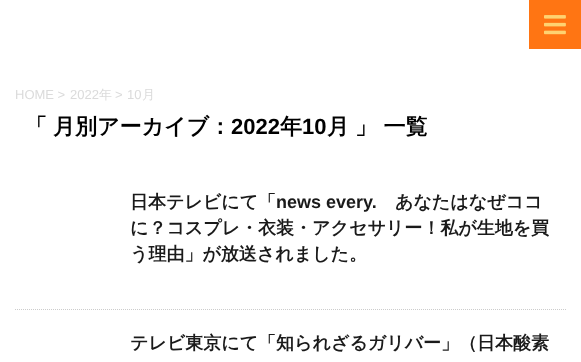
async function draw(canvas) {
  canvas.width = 581;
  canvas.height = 362;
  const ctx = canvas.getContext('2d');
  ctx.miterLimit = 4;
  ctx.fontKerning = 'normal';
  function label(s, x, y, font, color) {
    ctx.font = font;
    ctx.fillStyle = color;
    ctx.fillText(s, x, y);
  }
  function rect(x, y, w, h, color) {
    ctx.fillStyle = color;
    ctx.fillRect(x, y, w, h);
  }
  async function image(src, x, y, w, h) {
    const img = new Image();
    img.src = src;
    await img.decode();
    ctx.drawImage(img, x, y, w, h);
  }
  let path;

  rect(0, 0, 581, 362, '#fff');
  rect(529, 0, 52, 49, '#ff7513');
  await image('assets/img1.png', 544, 15, 22, 20);
  label('HOME >', 15, 99, '13px Liberation Sans', '#dbdbdb');
  label('2022', 70, 99, '13px Liberation Sans', '#dbdbdb');
  label('年', 99, 99, '500 13px WenQuanYi Zen Hei', '#dbdbdb');
  label('>', 115, 99, '13px Liberation Sans', '#dbdbdb');
  label('10', 127, 99, '13px Liberation Sans', '#dbdbdb');
  label('月', 142, 99, '500 13px WenQuanYi Zen Hei', '#dbdbdb');
  label('「', 25, 134, 'bold 22px WenQuanYi Zen Hei', '#000');
  label('月別アーカイブ：', 53, 134, 'bold 22px WenQuanYi Zen Hei', '#000');
  label('2022', 231, 134, 'bold 22px Liberation Sans', '#000');
  label('年', 280, 134, 'bold 22px WenQuanYi Zen Hei', '#000');
  label('10', 302, 134, 'bold 22px Liberation Sans', '#000');
  label('月', 327, 134, 'bold 22px WenQuanYi Zen Hei', '#000');
  label('」 一覧', 355, 134, 'bold 22px WenQuanYi Zen Hei', '#000');
  path = new Path2D('M15 309.5H566');
  ctx.strokeStyle = '#ccc';
  ctx.setLineDash([1, 1]);
  ctx.stroke(path);
  label('日本テレビにて「', 130, 208, 'bold 18px WenQuanYi Zen Hei', '#1a1a1a');
  label('news every.', 276, 208, 'bold 18px Liberation Sans', '#1a1a1a');
  label('あなたはなぜココ', 395, 208, 'bold 18px WenQuanYi Zen Hei', '#1a1a1a');
  label('に？コスプレ・衣装・アクセサリー！私が生地を買', 130, 234, 'bold 18px WenQuanYi Zen Hei', '#1a1a1a');
  label('う理由」が放送されました。', 130, 260, 'bold 18px WenQuanYi Zen Hei', '#1a1a1a');
  label('テレビ東京にて「知られざるガリバー」（日本酸素', 130, 349, 'bold 18px WenQuanYi Zen Hei', '#1a1a1a');
}

draw(document.querySelector('canvas'));
